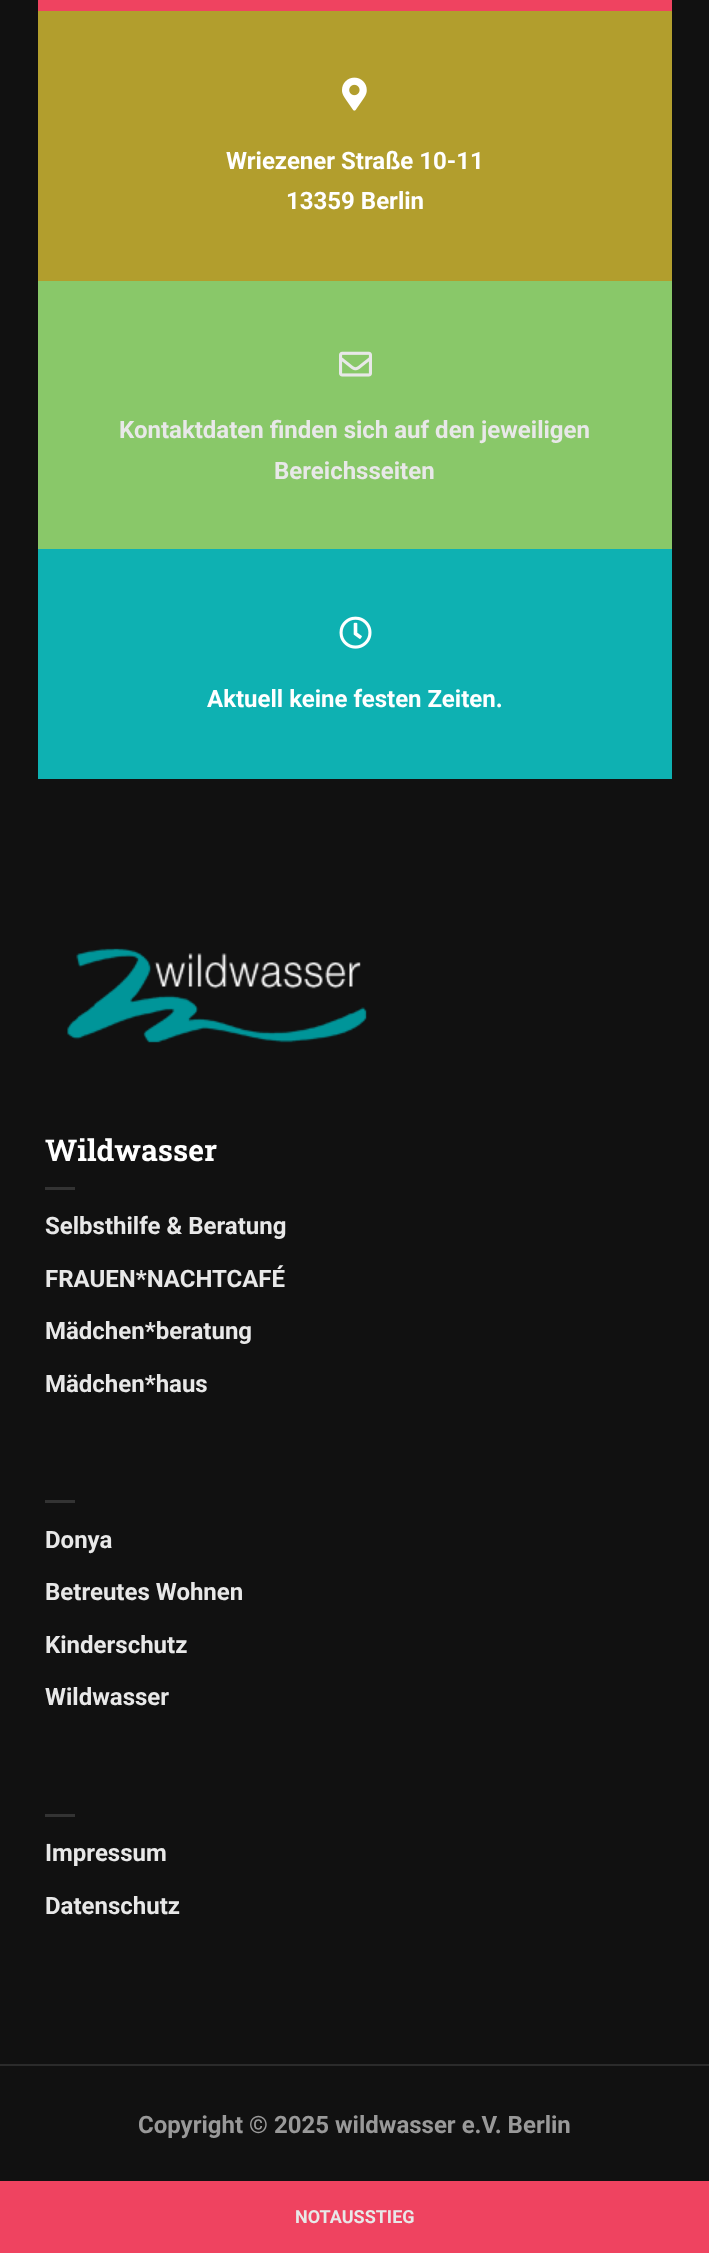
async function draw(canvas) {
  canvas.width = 709;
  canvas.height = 2253;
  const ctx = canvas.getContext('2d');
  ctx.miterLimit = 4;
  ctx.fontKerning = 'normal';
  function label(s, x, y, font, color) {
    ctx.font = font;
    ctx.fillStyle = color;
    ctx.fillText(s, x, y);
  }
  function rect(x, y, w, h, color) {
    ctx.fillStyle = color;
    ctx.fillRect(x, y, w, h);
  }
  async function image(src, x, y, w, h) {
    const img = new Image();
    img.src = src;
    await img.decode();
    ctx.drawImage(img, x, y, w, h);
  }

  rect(0, 0, 709, 2253, '#111');
  rect(38, 0, 634, 11, '#ef4360');
  rect(38, 11, 634, 270, '#b29e2d');
  await image('assets/img1.png', 342, 77, 25, 34);
  label('Wriezener Straße 10-11', 226, 169, 'bold 24px Roboto', '#fff');
  label('13359 Berlin', 286, 209, 'bold 24px Roboto', '#fff');
  rect(38, 281, 634, 268, '#89c869');
  await image('assets/img2.png', 339, 351, 33, 26);
  label('Kontaktdaten finden sich auf den jeweiligen', 119, 438, 'bold 24px Roboto', '#e8e8e8');
  label('Bereichsseiten', 274, 479, 'bold 24px Roboto', '#e8e8e8');
  rect(38, 549, 634, 230, '#0eb1b2');
  await image('assets/img3.png', 339, 616, 33, 33);
  label('Aktuell keine festen Zeiten.', 207, 707, 'bold 24px Roboto', '#fff');
  await image('assets/img4.png', 67, 948, 300, 95);
  label('Wildwasser', 45, 1161, 'bold 30px Roboto Slab', '#fff');
  rect(45, 1187, 30, 3, '#333');
  label('Selbsthilfe & Beratung', 45, 1234, 'bold 24px Roboto', '#e8e8e8');
  label('FRAUEN*NACHTCAFÉ', 45, 1287, 'bold 24px Roboto', '#e8e8e8');
  label('Mädchen*beratung', 45, 1339, 'bold 24px Roboto', '#e8e8e8');
  label('Mädchen*haus', 45, 1392, 'bold 24px Roboto', '#e8e8e8');
  rect(45, 1500, 30, 3, '#333');
  label('Donya', 45, 1548, 'bold 24px Roboto', '#e8e8e8');
  label('Betreutes Wohnen', 45, 1600, 'bold 24px Roboto', '#e8e8e8');
  label('Kinderschutz', 45, 1653, 'bold 24px Roboto', '#e8e8e8');
  label('Wildwasser', 45, 1705, 'bold 24px Roboto', '#e8e8e8');
  rect(45, 1814, 30, 3, '#333');
  label('Impressum', 45, 1861, 'bold 24px Roboto', '#e8e8e8');
  label('Datenschutz', 45, 1914, 'bold 24px Roboto', '#e8e8e8');
  rect(0, 2181, 709, 72, '#ef4360');
  label('NOTAUSSTIEG', 295, 2223, 'bold 18px Roboto', '#e8e8e8');
  rect(0, 2064, 709, 2, '#2b2b2b');
  label('Copyright © 2025 wildwasser e.V. Berlin', 138, 2133, 'bold 24px Roboto', '#999');
}

draw(document.querySelector('canvas'));
